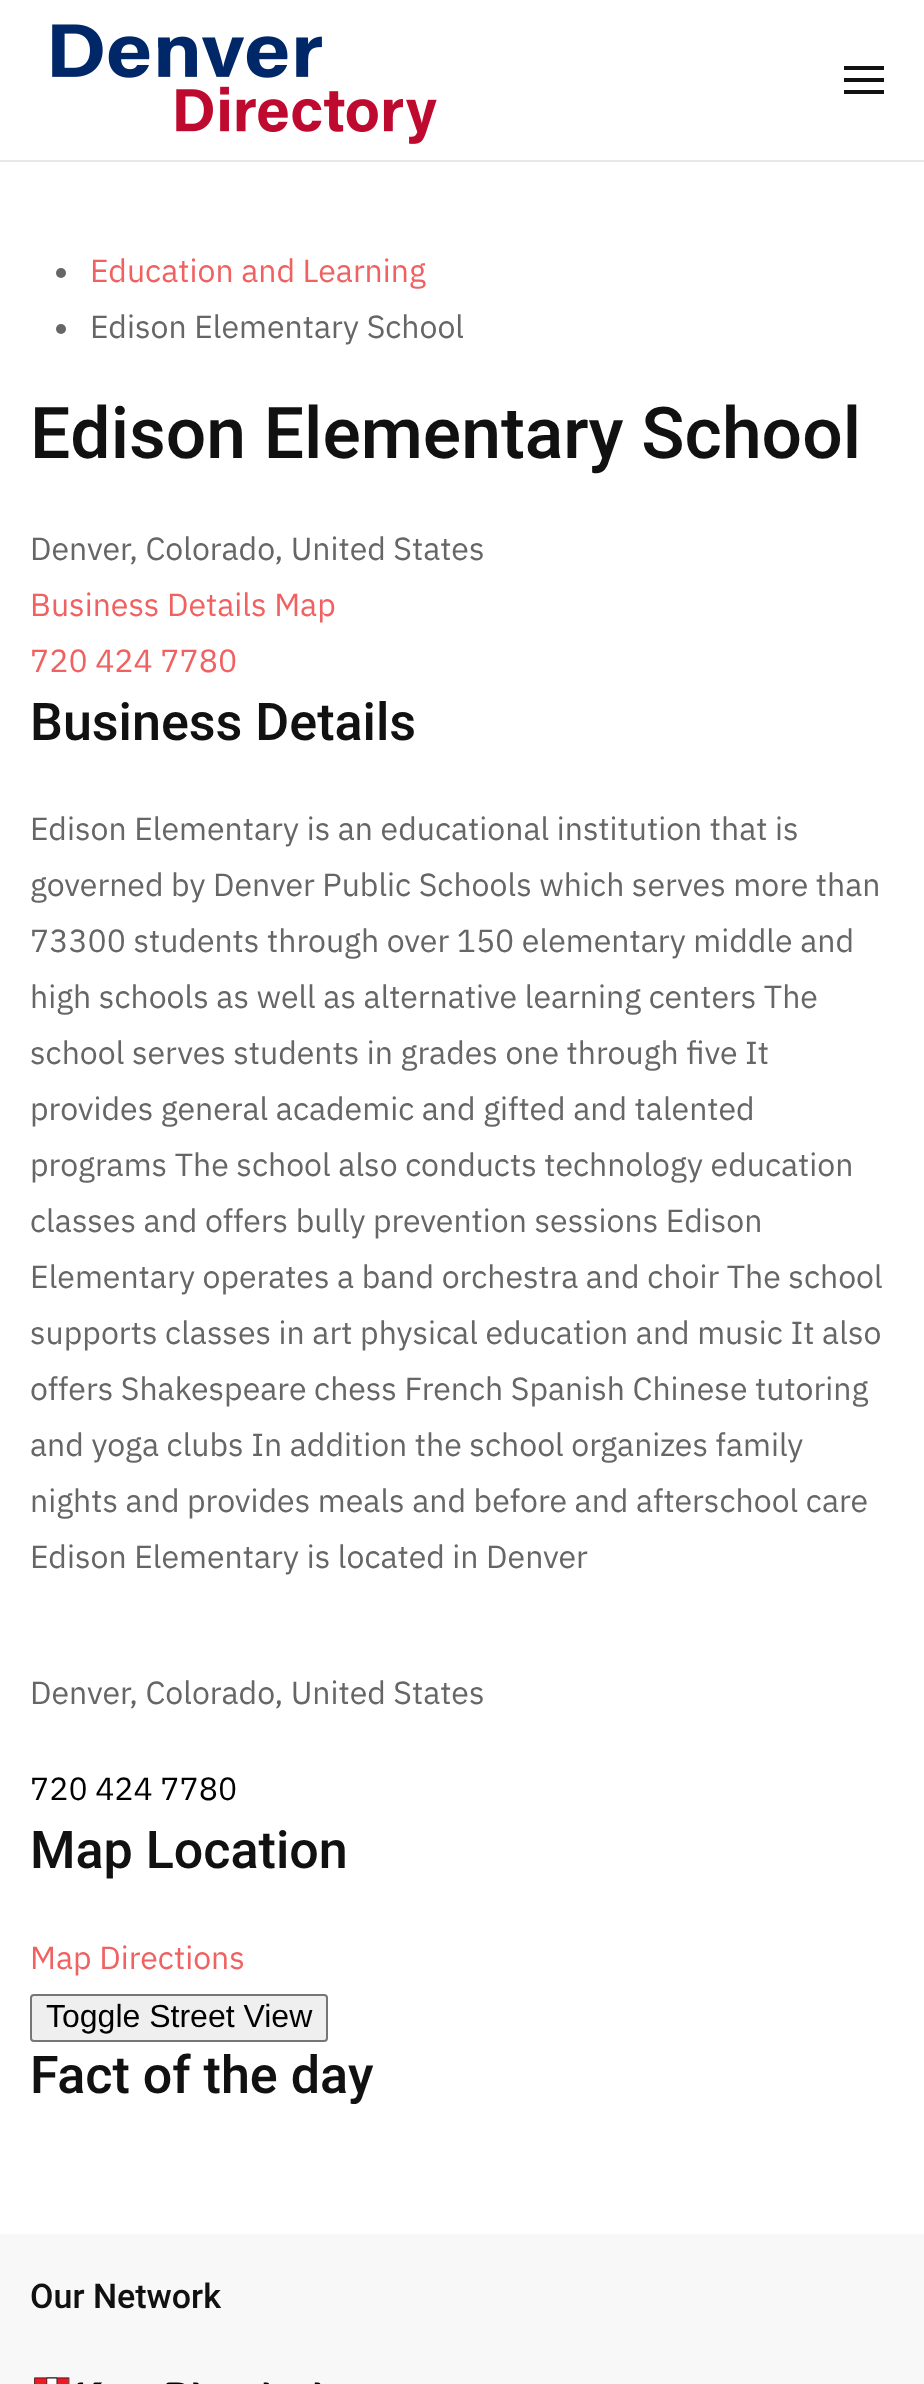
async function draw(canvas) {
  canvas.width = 924;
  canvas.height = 2384;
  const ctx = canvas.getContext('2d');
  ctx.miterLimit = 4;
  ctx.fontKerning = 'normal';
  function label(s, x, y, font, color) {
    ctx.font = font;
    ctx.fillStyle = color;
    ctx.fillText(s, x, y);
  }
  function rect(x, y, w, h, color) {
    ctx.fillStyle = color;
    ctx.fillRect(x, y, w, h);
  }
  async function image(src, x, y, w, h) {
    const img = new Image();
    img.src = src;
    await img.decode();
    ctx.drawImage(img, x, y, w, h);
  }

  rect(0, 0, 924, 2384, '#fff');
  rect(0, 160, 924, 2, '#e8e8e8');
  await image('assets/img1.png', 52, 24, 385, 120);
  rect(844, 66, 40, 4, '#111');
  rect(844, 78, 40, 4, '#111');
  rect(844, 90, 40, 4, '#111');
  ctx.fillStyle = '#666';
  ctx.beginPath();
  ctx.arc(61, 273, 5, 0, 2 * Math.PI);
  ctx.fill();
  label('Education and Learning', 90, 282, '32px IBM Plex Sans', '#f06161');
  ctx.fillStyle = '#666';
  ctx.beginPath();
  ctx.arc(61, 329, 5, 0, 2 * Math.PI);
  ctx.fill();
  label('Edison Elementary School', 90, 338, '32px IBM Plex Sans', '#666');
  label('Edison Elementary School', 30, 458, '500 71.4px Heebo', '#111');
  label('Denver, Colorado, United States', 30, 560, '32px IBM Plex Sans', '#666');
  label('Business Details Map', 30, 616, '32px IBM Plex Sans', '#f06161');
  label('720 424 7780', 30, 672, '32px IBM Plex Sans', '#f06161');
  label('Business Details', 30, 740, '500 52px Heebo', '#111');
  label('Edison Elementary is an educational institution that is', 30, 840, '32px IBM Plex Sans', '#666');
  label('governed by Denver Public Schools which serves more than', 30, 896, '32px IBM Plex Sans', '#666');
  label('73300 students through over 150 elementary middle and', 30, 952, '32px IBM Plex Sans', '#666');
  label('high schools as well as alternative learning centers The', 30, 1008, '32px IBM Plex Sans', '#666');
  label('school serves students in grades one through five It', 30, 1064, '32px IBM Plex Sans', '#666');
  label('provides general academic and gifted and talented', 30, 1120, '32px IBM Plex Sans', '#666');
  label('programs The school also conducts technology education', 30, 1176, '32px IBM Plex Sans', '#666');
  label('classes and offers bully prevention sessions Edison', 30, 1232, '32px IBM Plex Sans', '#666');
  label('Elementary operates a band orchestra and choir The school', 30, 1288, '32px IBM Plex Sans', '#666');
  label('supports classes in art physical education and music It also', 30, 1344, '32px IBM Plex Sans', '#666');
  label('offers Shakespeare chess French Spanish Chinese tutoring', 30, 1400, '32px IBM Plex Sans', '#666');
  label('and yoga clubs In addition the school organizes family', 30, 1456, '32px IBM Plex Sans', '#666');
  label('nights and provides meals and before and afterschool care', 30, 1512, '32px IBM Plex Sans', '#666');
  label('Edison Elementary is located in Denver', 30, 1568, '32px IBM Plex Sans', '#666');
  label('Denver, Colorado, United States', 30, 1704, '32px IBM Plex Sans', '#666');
  label('720 424 7780', 30, 1800, '32px IBM Plex Sans', '#000');
  label('Map Location', 30, 1868, '500 52px Heebo', '#111');
  label('Map Directions', 30, 1969, '32px IBM Plex Sans', '#f06161');
  ctx.fillStyle = '#efefef';
  ctx.beginPath();
  ctx.roundRect(31, 1995, 296, 46, 3);
  ctx.fill();
  ctx.strokeStyle = '#767676';
  ctx.lineWidth = 2;
  ctx.stroke();
  label('Toggle Street View', 46, 2027, '32px Liberation Sans', '#000');
  label('Fact of the day', 30, 2093, '500 52px Heebo', '#111');
  rect(0, 2234, 924, 150, '#f8f8f8');
  label('Our Network', 30, 2308, '500 34px Heebo', '#111');
  await image('assets/img2.png', 34, 2377, 287, 7);
}

draw(document.querySelector('canvas'));
